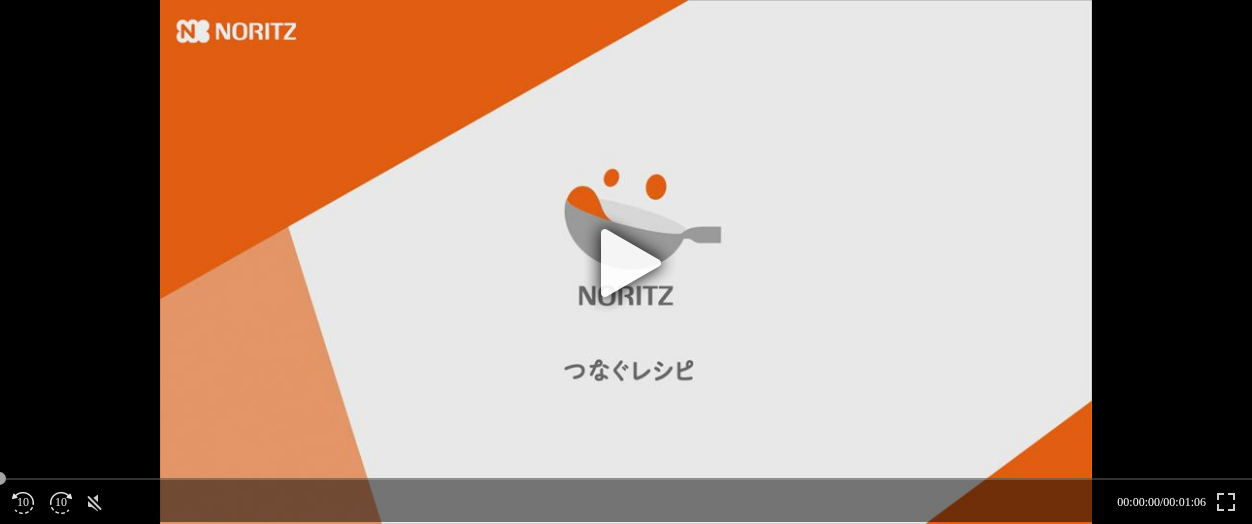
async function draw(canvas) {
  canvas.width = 1252;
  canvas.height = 524;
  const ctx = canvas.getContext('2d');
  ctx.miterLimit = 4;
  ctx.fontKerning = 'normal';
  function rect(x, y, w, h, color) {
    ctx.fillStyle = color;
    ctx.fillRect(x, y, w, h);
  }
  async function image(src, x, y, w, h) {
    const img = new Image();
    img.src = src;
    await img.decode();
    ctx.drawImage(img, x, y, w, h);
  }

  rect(0, 0, 1252, 524, '#fff');
  await image('assets/img1.png', 0, 0, 1252, 524);
}

draw(document.querySelector('canvas'));
